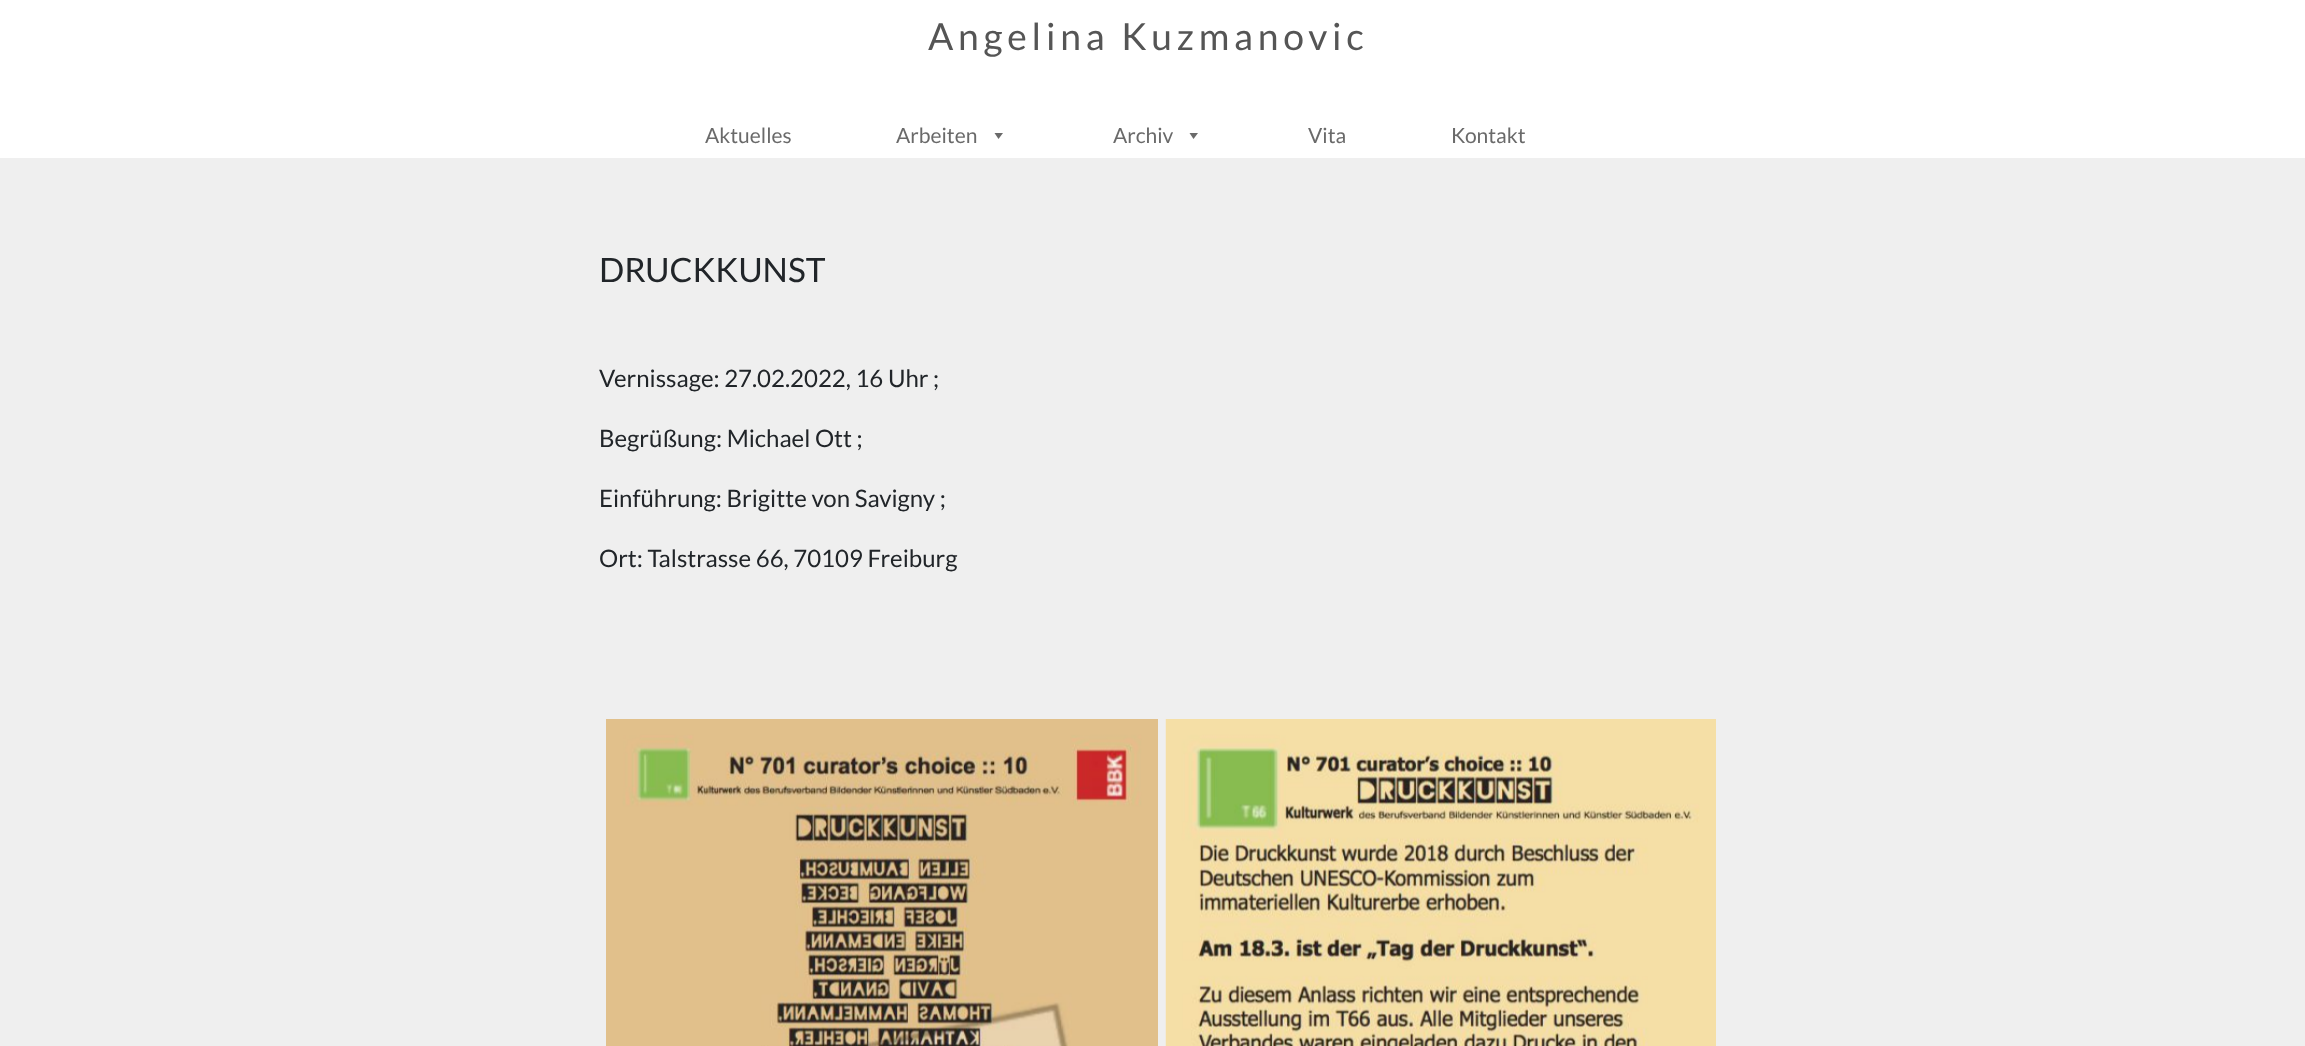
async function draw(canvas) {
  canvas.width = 2305;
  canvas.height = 1046;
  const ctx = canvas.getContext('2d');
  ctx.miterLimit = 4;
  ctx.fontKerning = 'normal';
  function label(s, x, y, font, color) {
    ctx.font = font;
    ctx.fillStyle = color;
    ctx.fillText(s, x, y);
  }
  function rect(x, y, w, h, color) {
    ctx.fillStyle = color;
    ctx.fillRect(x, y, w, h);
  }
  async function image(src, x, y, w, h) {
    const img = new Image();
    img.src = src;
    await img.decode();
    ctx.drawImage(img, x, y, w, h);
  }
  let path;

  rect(0, 0, 2305, 1046, '#efefef');
  rect(0, 0, 2305, 158, '#fff');
  ctx.letterSpacing = '4.75px';
  label('Angelina Kuzmanovic', 928, 50, '37.25px Lato', '#555');
  ctx.letterSpacing = '0px';
  label('Aktuelles', 705, 143, '21px Lato', '#6a6a6a');
  label('Arbeiten', 896, 143, '21px Lato', '#6a6a6a');
  path = new Path2D('M1003 133L998.5 139L994.5 133Z');
  ctx.fill(path);
  label('Archiv', 1113, 143, '21px Lato', '#6a6a6a');
  path = new Path2D('M1198 133L1193.5 139L1189.5 133Z');
  ctx.fill(path);
  label('Vita', 1308, 143, '21px Lato', '#6a6a6a');
  label('Kontakt', 1451, 143, '21px Lato', '#6a6a6a');
  label('DRUCKKUNST', 599, 282, '33.5px Lato', '#212529');
  label('Vernissage: 27.02.2022, 16 Uhr ;', 599, 387, '24px Lato', '#212529');
  label('Begrüßung: Michael Ott ;', 599, 447, '24px Lato', '#212529');
  label('Einführung: Brigitte von Savigny ;', 599, 507, '24px Lato', '#212529');
  label('Ort: Talstrasse 66, 70109 Freiburg', 599, 567, '24px Lato', '#212529');
  await image('assets/img1.png', 606, 719, 552, 327);
  await image('assets/img2.png', 1165, 719, 551, 327);
}

draw(document.querySelector('canvas'));
